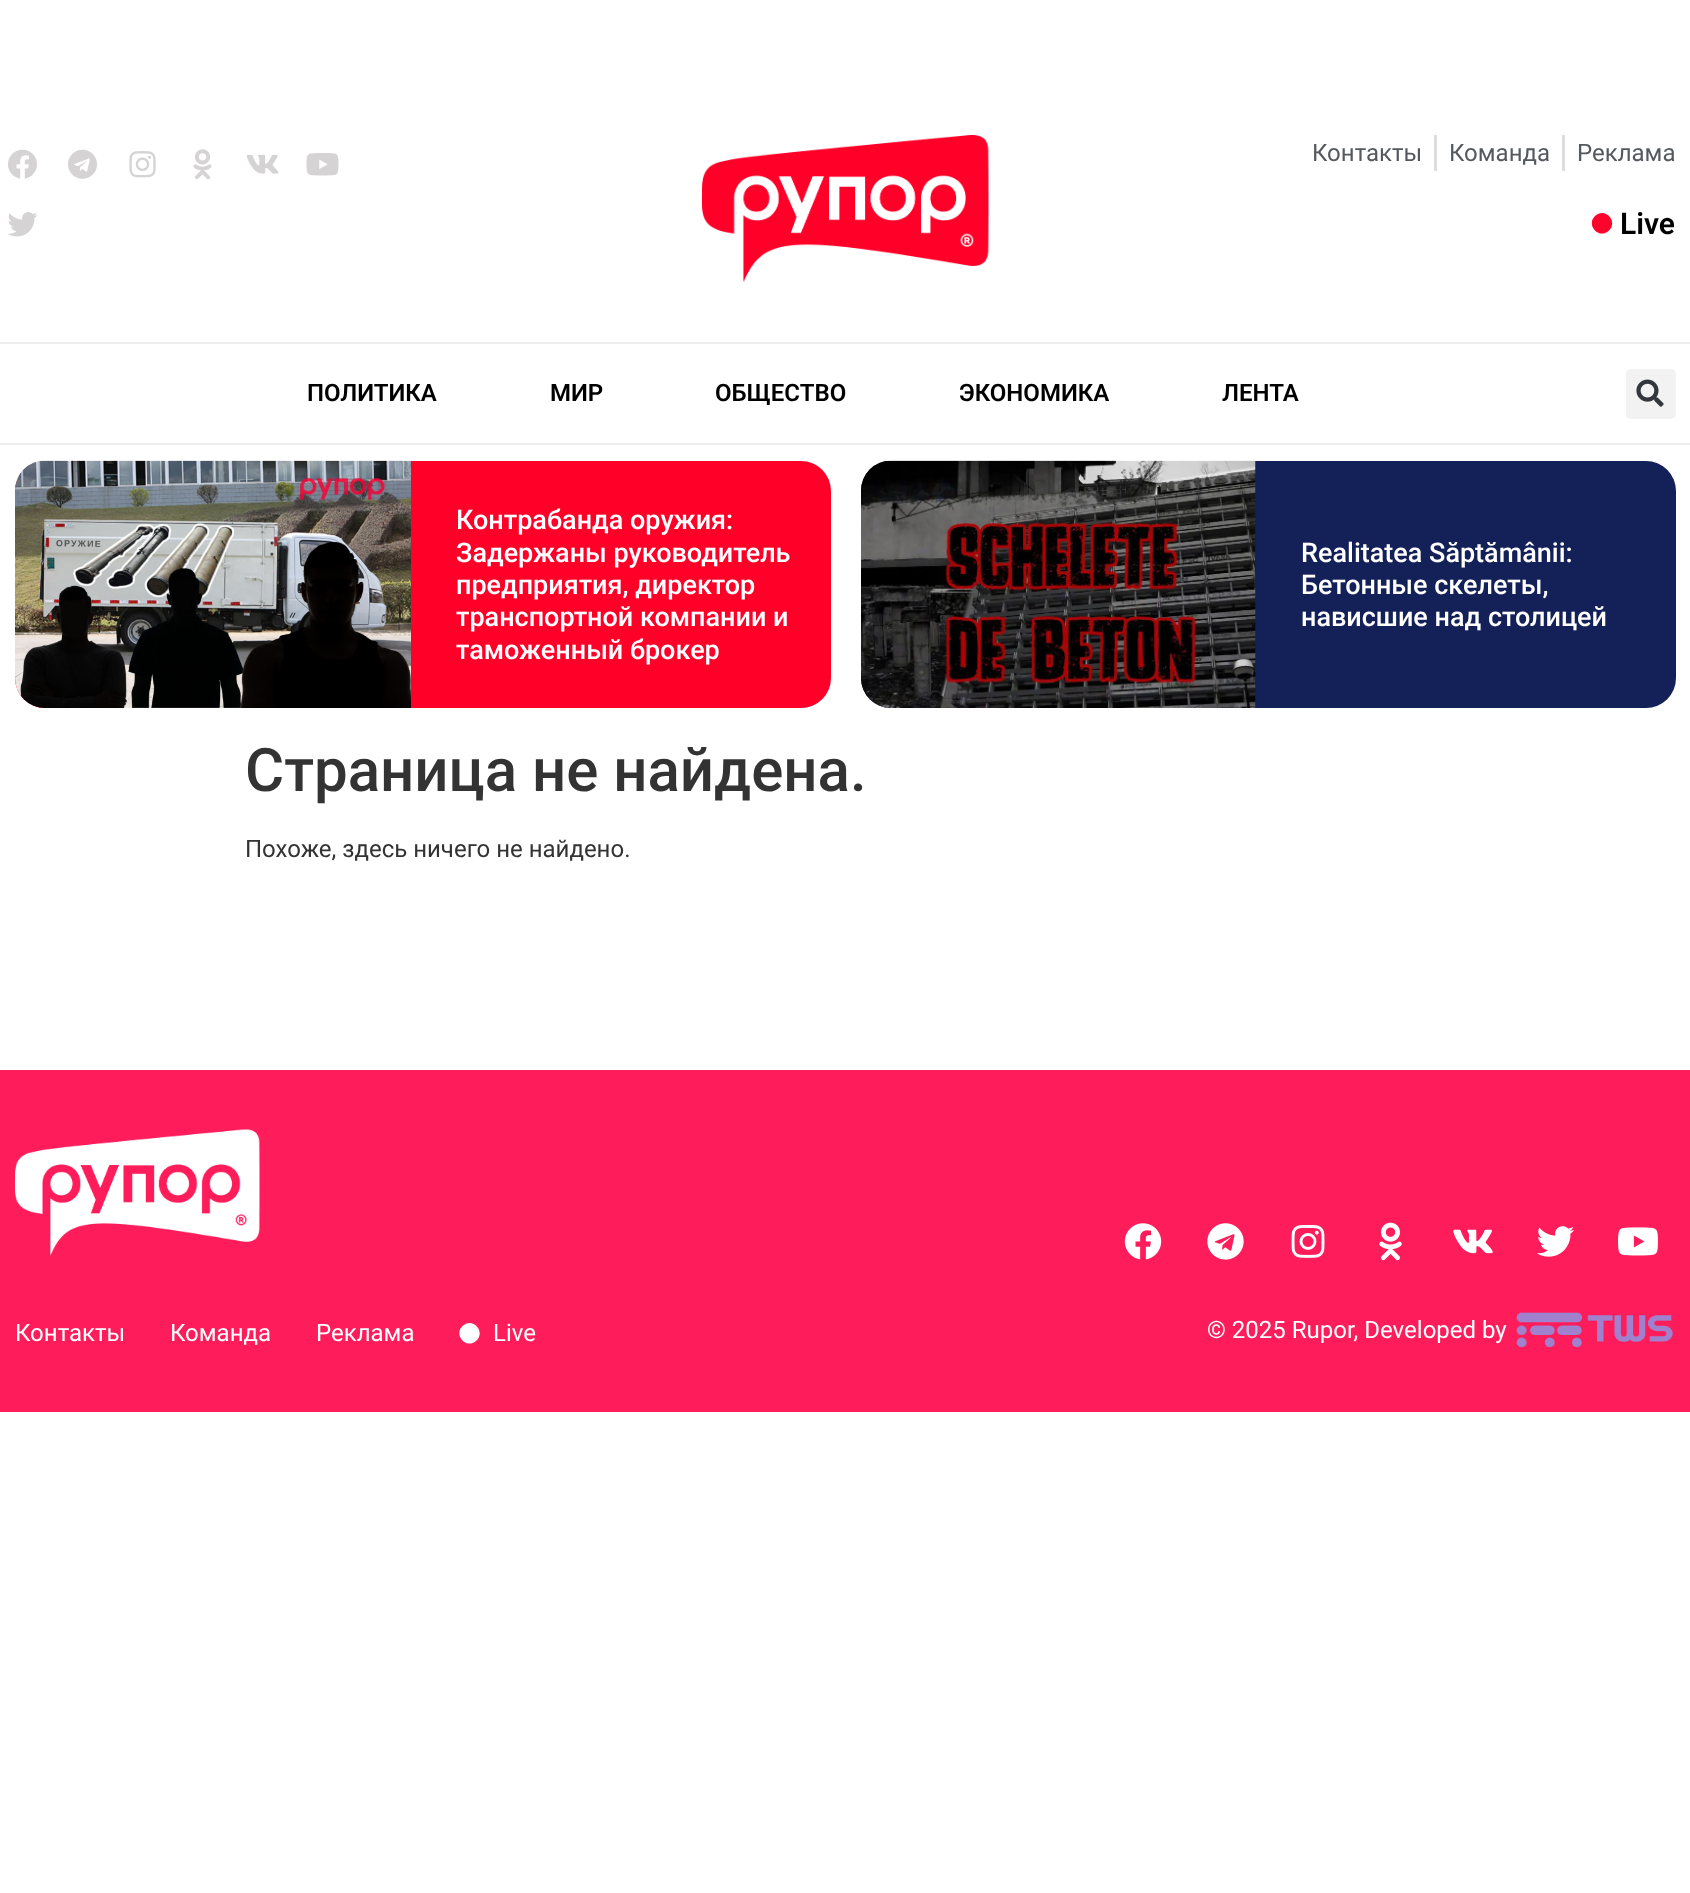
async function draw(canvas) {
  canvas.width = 1690;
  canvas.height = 1893;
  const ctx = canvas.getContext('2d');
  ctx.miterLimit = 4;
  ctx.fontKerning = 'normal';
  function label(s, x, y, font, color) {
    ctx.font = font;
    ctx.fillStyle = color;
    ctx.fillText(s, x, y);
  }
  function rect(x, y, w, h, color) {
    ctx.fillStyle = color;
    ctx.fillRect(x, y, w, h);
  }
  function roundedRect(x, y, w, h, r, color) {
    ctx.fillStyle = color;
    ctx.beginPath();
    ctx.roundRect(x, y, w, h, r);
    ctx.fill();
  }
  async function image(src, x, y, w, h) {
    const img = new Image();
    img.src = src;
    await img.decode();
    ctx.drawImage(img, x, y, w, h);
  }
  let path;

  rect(0, 0, 1690, 1893, '#fff');
  await image('assets/img1.png', 8, 149, 29, 30);
  await image('assets/img2.png', 68, 149, 29, 30);
  await image('assets/img3.png', 129, 151, 27, 27);
  await image('assets/img4.png', 193, 149, 19, 31);
  await image('assets/img5.png', 246, 154, 33, 20);
  await image('assets/img6.png', 306, 153, 33, 23);
  await image('assets/img7.png', 8, 212, 30, 25);
  await image('assets/img8.png', 702, 135, 287, 147);
  label('Контакты', 1312, 161, '24px Roboto', '#54595f');
  rect(1434, 135, 3, 36, '#ddd');
  label('Команда', 1449, 161, '24px Roboto', '#54595f');
  rect(1562, 135, 3, 36, '#ddd');
  label('Реклама', 1577, 161, '24px Roboto', '#54595f');
  ctx.fillStyle = '#fc042c';
  path = new Path2D('M1595 216C1604.5 206.5 1618.5 221 1609 230.5C1599.5 240 1585.5 225.5 1595 216Z');
  ctx.fill(path);
  label('Live', 1620, 234, '600 30px Roboto', '#000');
  rect(0, 342, 1690, 2, '#ededed');
  label('ПОЛИТИКА', 307, 401, '600 24px Roboto', '#000');
  label('МИР', 550, 401, '600 24px Roboto', '#000');
  label('ОБЩЕСТВО', 715, 401, '600 24px Roboto', '#000');
  label('ЭКОНОМИКА', 959, 401, '600 24px Roboto', '#000');
  label('ЛЕНТА', 1222, 401, '600 24px Roboto', '#000');
  roundedRect(1626, 369, 50, 50, 5, '#f2f2f2');
  await image('assets/img9.png', 1636, 379, 28, 28);
  rect(0, 443, 1690, 2, '#ededed');
  roundedRect(15, 461, 816, 247, 30, '#ff0028');
  await image('assets/img10.png', 15, 460, 396, 248);
  label('Контрабанда оружия:', 456, 529, '500 27px Roboto', '#fff');
  label('Задержаны руководитель', 456, 562, '500 27px Roboto', '#fff');
  label('предприятия, директор', 456, 594, '500 27px Roboto', '#fff');
  label('транспортной компании и', 456, 626, '500 27px Roboto', '#fff');
  label('таможенный брокер', 456, 659, '500 27px Roboto', '#fff');
  roundedRect(861, 461, 815, 247, 30, '#142158');
  await image('assets/img11.png', 861, 460, 395, 248);
  label('Realitatea Săptămânii:', 1301, 562, '500 27px Roboto', '#fff');
  label('Бетонные скелеты,', 1301, 594, '500 27px Roboto', '#fff');
  label('нависшие над столицей', 1301, 626, '500 27px Roboto', '#fff');
  label('Страница не найдена.', 245, 791, '500 60px Roboto', '#333');
  label('Похоже, здесь ничего не найдено.', 245, 857, '24px Roboto', '#333');
  rect(0, 1070, 1690, 342, '#ff1c5b');
  await image('assets/img12.png', 15, 1129, 245, 127);
  label('Контакты', 15, 1341, '24px Roboto', '#fff');
  label('Команда', 170, 1341, '24px Roboto', '#fff');
  label('Реклама', 316, 1341, '24px Roboto', '#fff');
  path = new Path2D('M462.5 1326C472 1316.5 486 1331 476.5 1340.5C467 1350 453 1335.5 462.5 1326Z');
  ctx.fill(path);
  label('Live', 493, 1341, '24px Roboto', '#fff');
  await image('assets/img13.png', 1124, 1223, 38, 37);
  await image('assets/img14.png', 1207, 1223, 37, 37);
  await image('assets/img15.png', 1291, 1224, 34, 34);
  await image('assets/img16.png', 1379, 1222, 23, 39);
  await image('assets/img17.png', 1453, 1229, 40, 25);
  await image('assets/img18.png', 1537, 1226, 38, 31);
  await image('assets/img19.png', 1618, 1227, 40, 29);
  label('© 2025 Rupor, Developed by', 1207, 1338, '24px Roboto', '#fff');
  await image('assets/img20.png', 1516, 1312, 157, 36);
}

draw(document.querySelector('canvas'));
